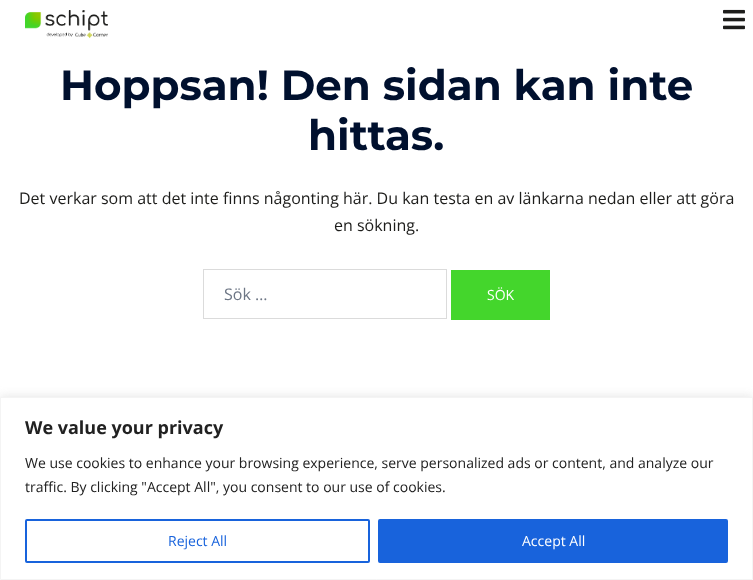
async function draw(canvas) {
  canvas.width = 753;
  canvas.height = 580;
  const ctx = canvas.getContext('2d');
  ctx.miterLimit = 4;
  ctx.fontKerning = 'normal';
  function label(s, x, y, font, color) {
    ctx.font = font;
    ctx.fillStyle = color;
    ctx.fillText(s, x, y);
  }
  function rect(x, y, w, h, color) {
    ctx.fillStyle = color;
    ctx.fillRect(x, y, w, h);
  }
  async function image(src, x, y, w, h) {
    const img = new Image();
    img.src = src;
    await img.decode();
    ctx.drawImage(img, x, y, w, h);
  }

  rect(0, 0, 753, 580, '#fff');
  await image('assets/img1.png', 25, 10, 83, 29);
  await image('assets/img2.png', 723, 9, 22, 21);
  label('Hoppsan! Den sidan kan inte', 60, 100, '100 42px Montserrat', '#00102e');
  label('hittas.', 308, 150, '100 42px Montserrat', '#00102e');
  label('Det verkar som att det inte finns någonting här. Du kan testa en av länkarna nedan eller att göra', 19, 204, '16px Open Sans', '#1d1d1b');
  label('en sökning.', 334, 231, '16px Open Sans', '#1d1d1b');
  ctx.strokeStyle = '#dbdbdb';
  ctx.strokeRect(203.5, 269.5, 243, 49);
  label('Sök …', 224, 300, '16px Open Sans', '#6d7685');
  rect(451, 270, 99, 50, '#44d62c');
  label('SÖK', 487, 300, '14px Open Sans', '#fff');
  ctx.fillStyle = '#acabab4d';
  ctx.filter = 'blur(5px)';
  ctx.beginPath();
  ctx.rect(0, 396, 753, 183);
  ctx.fill();
  ctx.filter = 'none';
  ctx.fillStyle = '#fff';
  ctx.beginPath();
  ctx.rect(0.5, 397.5, 752, 182);
  ctx.fill();
  ctx.strokeStyle = '#f4f4f4';
  ctx.stroke();
  label('We value your privacy', 25, 434, 'bold 18px Open Sans', '#212121');
  label('We use cookies to enhance your browsing experience, serve personalized ads or content, and analyze our', 25, 468, '14px Open Sans', '#212121');
  label('traffic. By clicking "Accept All", you consent to our use of cookies.', 25, 492, '14px Open Sans', '#212121');
  ctx.beginPath();
  ctx.roundRect(26, 520, 343, 42, 1);
  ctx.strokeStyle = '#1863dc';
  ctx.lineWidth = 2;
  ctx.stroke();
  label('Reject All', 168, 546, '14px Open Sans', '#1863dc');
  ctx.beginPath();
  ctx.roundRect(379, 520, 348, 42, 1);
  ctx.fill();
  ctx.stroke();
  label('Accept All', 522, 546, '14px Open Sans', '#fff');
}

draw(document.querySelector('canvas'));
